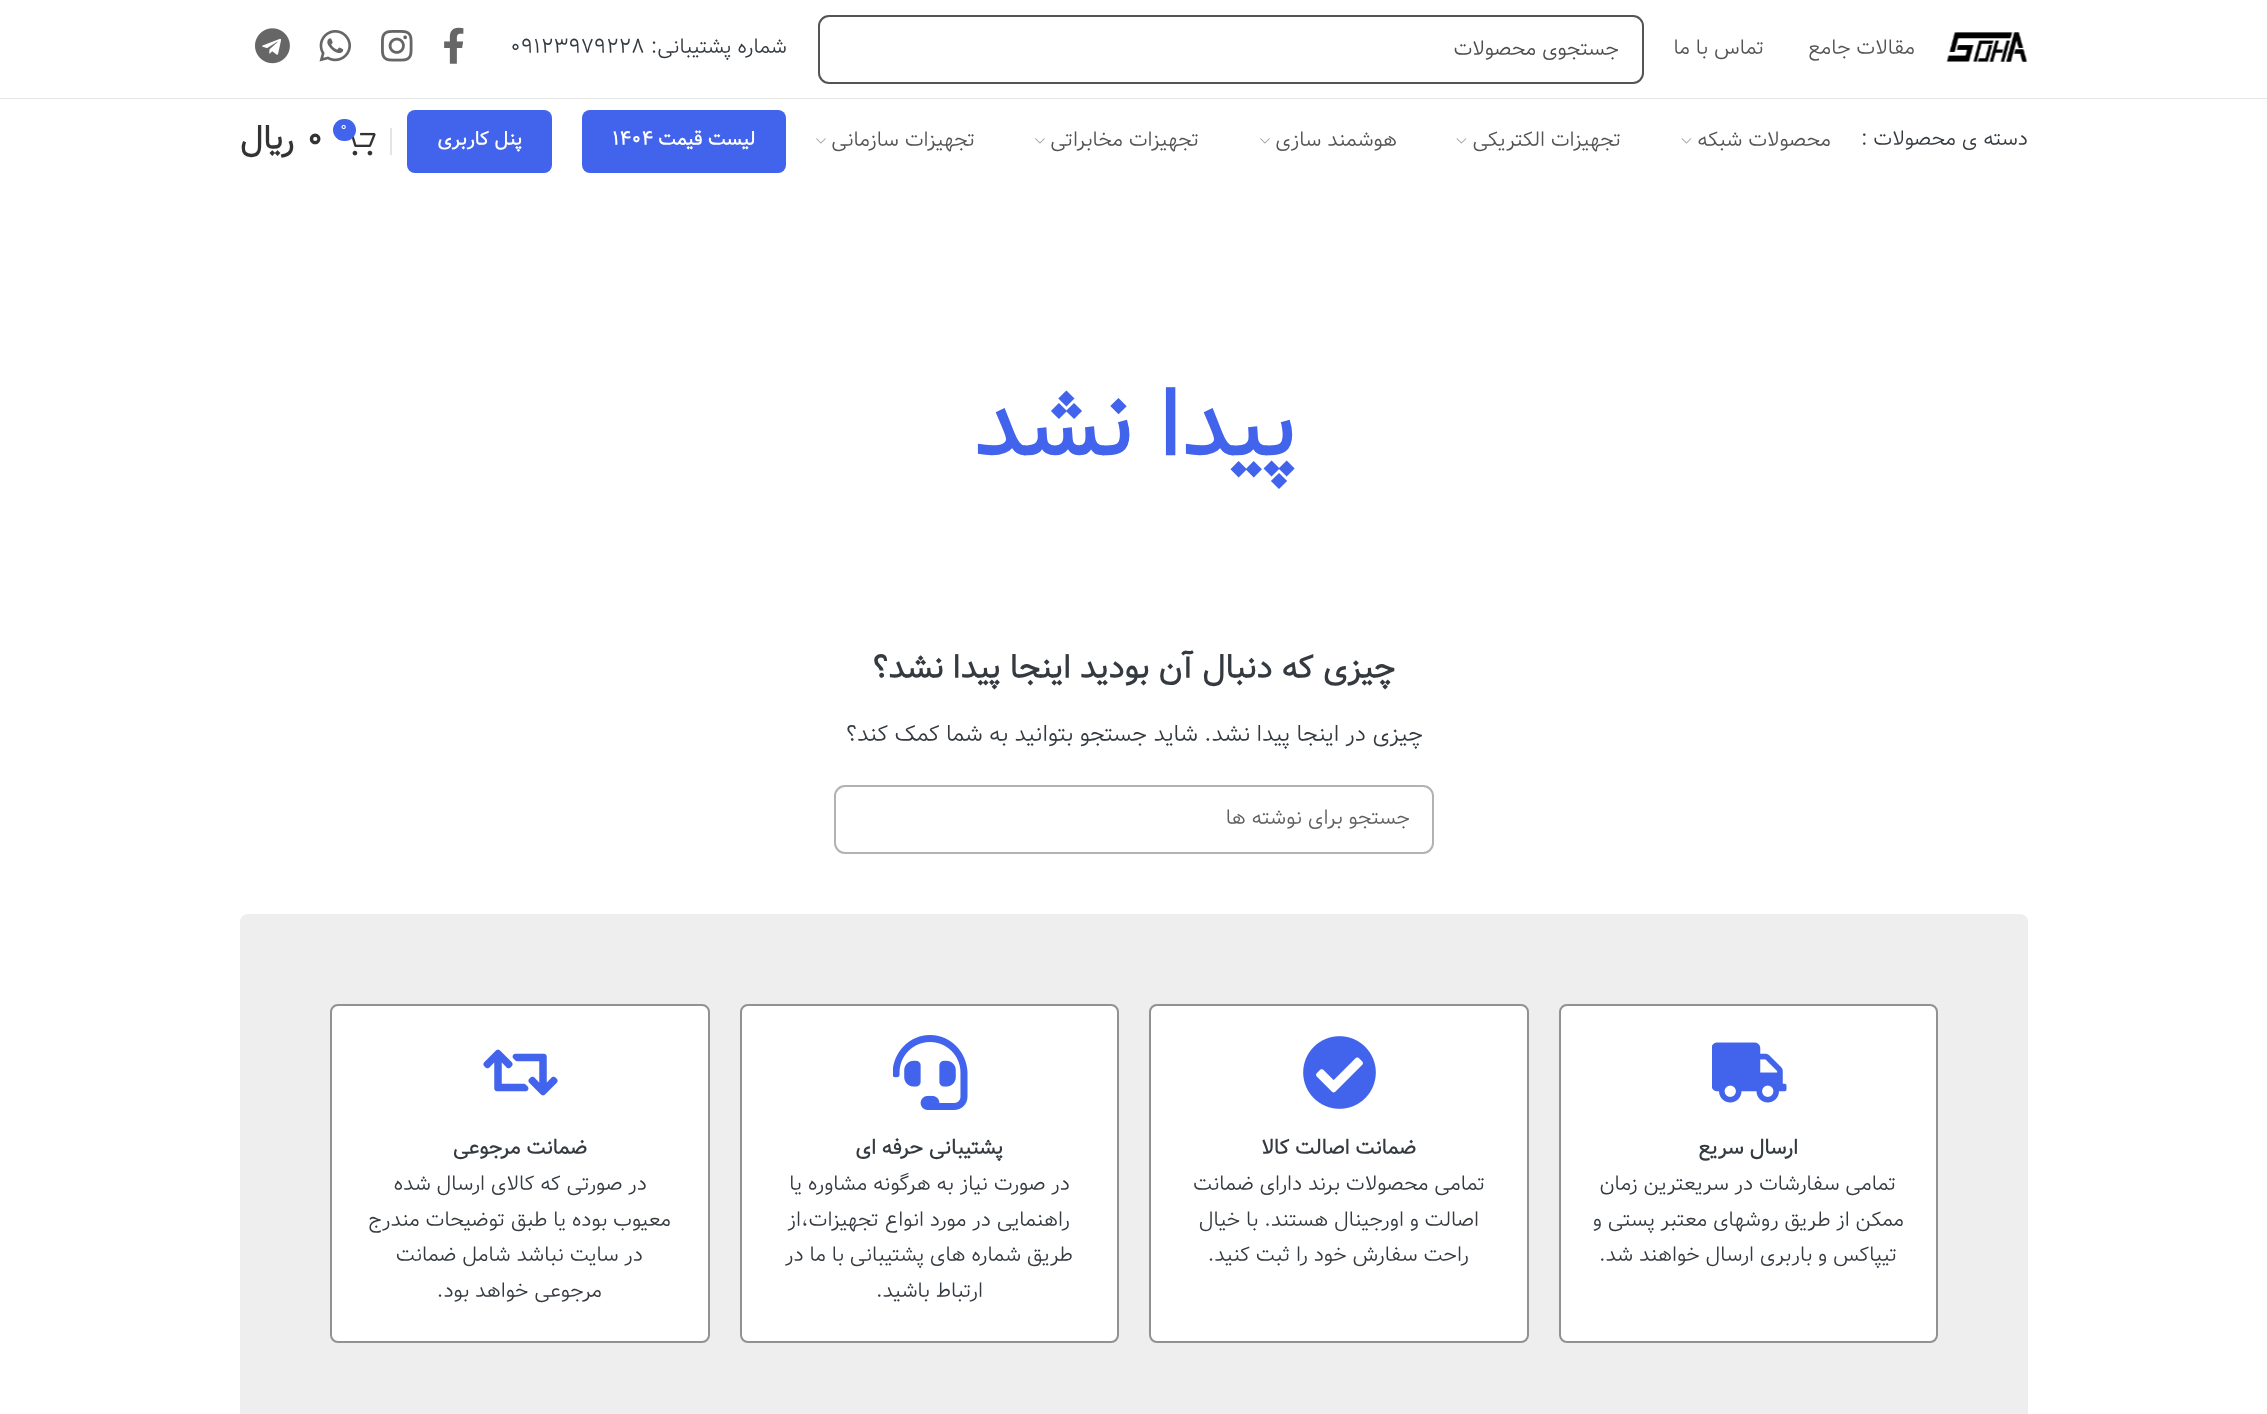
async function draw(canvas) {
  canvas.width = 2267;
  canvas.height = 1414;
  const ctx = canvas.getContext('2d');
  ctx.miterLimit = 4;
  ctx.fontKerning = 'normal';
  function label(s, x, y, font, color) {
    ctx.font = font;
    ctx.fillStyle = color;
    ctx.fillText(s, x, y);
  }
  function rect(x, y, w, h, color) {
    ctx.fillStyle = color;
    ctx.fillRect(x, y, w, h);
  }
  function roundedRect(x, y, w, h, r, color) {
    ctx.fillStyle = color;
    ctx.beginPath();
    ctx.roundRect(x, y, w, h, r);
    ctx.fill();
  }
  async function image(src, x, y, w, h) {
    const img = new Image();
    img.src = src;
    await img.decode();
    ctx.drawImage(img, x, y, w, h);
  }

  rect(0, 0, 2267, 1414, '#fff');
  rect(0, 98, 2267, 1, '#e6e6e6');
  await image('assets/img1.png', 1946, 32, 82, 30);
  ctx.direction = 'rtl';
  label('مقالات جامع', 1915, 54, '300 21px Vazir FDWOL', '#545454');
  label('تماس با ما', 1764, 54, '300 21px Vazir FDWOL', '#545454');
  ctx.beginPath();
  ctx.roundRect(819, 16, 824, 67, 10);
  ctx.strokeStyle = '#545454';
  ctx.lineWidth = 2;
  ctx.stroke();
  label('جستجوی محصولات', 1619, 55, '300 21px Vazir FDWOL', '#4d4d4d');
  label('شماره پشتیبانی:', 787, 53, '300 21px Vazir FDWOL', '#343a40');
  ctx.direction = 'ltr';
  label('09123979228', 510, 53, '300 21px Vazir FDWOL', '#343a40');
  await image('assets/img2.png', 444, 27, 20, 37);
  await image('assets/img3.png', 381, 30, 32, 32);
  await image('assets/img4.png', 319, 30, 32, 32);
  await image('assets/img5.png', 255, 28, 35, 36);
  ctx.direction = 'rtl';
  label('دسته ی محصولات :', 2028, 145, '300 21px Vazir FDWOL', '#343a40');
  label('محصولات شبکه', 1831, 146, '300 21px Vazir FDWOL', '#545454');
  await image('assets/img6.png', 1681, 138, 11, 6);
  label('تجهیزات الکتریکی', 1621, 146, '300 21px Vazir FDWOL', '#545454');
  await image('assets/img6.png', 1456, 138, 11, 6);
  label('هوشمند سازی', 1397, 146, '300 21px Vazir FDWOL', '#545454');
  await image('assets/img7.png', 1260, 138, 10, 6);
  label('تجهیزات مخابراتی', 1199, 146, '300 21px Vazir FDWOL', '#545454');
  await image('assets/img7.png', 1035, 138, 10, 6);
  label('تجهیزات سازمانی', 975, 146, '300 21px Vazir FDWOL', '#545454');
  await image('assets/img7.png', 816, 138, 10, 6);
  roundedRect(582, 110, 204, 63, 8, '#4263eb');
  label('لیست قیمت', 755, 145, 'bold 19.5px Vazir FDWOL', '#fff');
  ctx.direction = 'ltr';
  label('1404', 612, 145, 'bold 19.5px Vazir FDWOL', '#fff');
  roundedRect(407, 110, 145, 63, 8, '#4263eb');
  ctx.direction = 'rtl';
  label('پنل کاربری', 522, 145, 'bold 19.5px Vazir FDWOL', '#fff');
  rect(390, 128, 2, 27, '#e4e4e4');
  await image('assets/img8.png', 351, 132, 25, 24);
  roundedRect(333, 119, 23, 22, 11, '#4263eb');
  ctx.direction = 'ltr';
  label('0', 340, 131, '300 14px Vazir FDWOL', '#fff');
  label('0', 306, 149, 'bold 33px Vazir FDWOL', '#333');
  ctx.direction = 'rtl';
  label('﷼', 297, 149, 'bold 33px Vazir FDWOL', '#333');
  label('پیدا نشد', 1296, 456, 'bold 95px Vazir FDWOL', '#4263eb');
  label('چیزی که دنبال آن بودید اینجا پیدا نشد؟', 1395, 678, 'bold 33px Vazir FDWOL', '#343a40');
  label('چیزی در اینجا پیدا نشد. شاید جستجو بتوانید به شما کمک کند؟', 1423, 741, '300 23.1px Vazir FDWOL', '#343a40');
  ctx.beginPath();
  ctx.roundRect(835, 786, 598, 67, 10);
  ctx.strokeStyle = '#b2b2b2';
  ctx.stroke();
  label('جستجو برای نوشته ها', 1410, 824, '300 21px Vazir FDWOL', '#606060');
  roundedRect(240, 914, 1788, 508, 8, '#eee');
  ctx.fillStyle = '#fff';
  ctx.beginPath();
  ctx.roundRect(1560, 1005, 377, 337, 7);
  ctx.fill();
  ctx.strokeStyle = '#919191';
  ctx.stroke();
  await image('assets/img9.png', 1712, 1042, 75, 61);
  label('ارسال سریع', 1798, 1154, 'bold 21px Vazir FDWOL', '#343a40');
  label('تمامی سفارشات در سریعترین زمان', 1896, 1190, '300 21px Vazir FDWOL', '#343a40');
  label('ممکن از طریق روشهای معتبر پستی و', 1904, 1226, '300 21px Vazir FDWOL', '#343a40');
  label('تیپاکس و باربری ارسال خواهند شد.', 1897, 1261, '300 21px Vazir FDWOL', '#343a40');
  ctx.fillStyle = '#fff';
  ctx.beginPath();
  ctx.roundRect(1150, 1005, 378, 337, 7);
  ctx.fill();
  ctx.stroke();
  await image('assets/img10.png', 1303, 1036, 73, 73);
  label('ضمانت اصالت کالا', 1416, 1154, 'bold 21px Vazir FDWOL', '#343a40');
  label('تمامی محصولات برند دارای ضمانت', 1485, 1190, '300 21px Vazir FDWOL', '#343a40');
  label('اصالت و اورجینال هستند. با خیال', 1479, 1226, '300 21px Vazir FDWOL', '#343a40');
  label('راحت سفارش خود را ثبت کنید.', 1469, 1261, '300 21px Vazir FDWOL', '#343a40');
  ctx.fillStyle = '#fff';
  ctx.beginPath();
  ctx.roundRect(741, 1005, 377, 337, 7);
  ctx.fill();
  ctx.stroke();
  await image('assets/img11.png', 893, 1035, 75, 75);
  label('پشتیبانی حرفه ای', 1003, 1154, 'bold 21px Vazir FDWOL', '#343a40');
  label('در صورت نیاز به هرگونه مشاوره یا', 1070, 1190, '300 21px Vazir FDWOL', '#343a40');
  label('راهنمایی در مورد انواع تجهیزات،از', 1070, 1226, '300 21px Vazir FDWOL', '#343a40');
  label('طریق شماره های پشتیبانی با ما در', 1073, 1261, '300 21px Vazir FDWOL', '#343a40');
  label('ارتباط باشید.', 983, 1297, '300 21px Vazir FDWOL', '#343a40');
  ctx.fillStyle = '#fff';
  ctx.beginPath();
  ctx.roundRect(331, 1005, 378, 337, 7);
  ctx.fill();
  ctx.stroke();
  await image('assets/img12.png', 483, 1049, 75, 47);
  label('ضمانت مرجوعی', 587, 1154, 'bold 21px Vazir FDWOL', '#343a40');
  label('در صورتی که کالای ارسال شده', 647, 1190, '300 21px Vazir FDWOL', '#343a40');
  label('معیوب بوده یا طبق توضیحات مندرج', 671, 1226, '300 21px Vazir FDWOL', '#343a40');
  label('در سایت نباشد شامل ضمانت', 643, 1261, '300 21px Vazir FDWOL', '#343a40');
  label('مرجوعی خواهد بود.', 602, 1297, '300 21px Vazir FDWOL', '#343a40');
}

draw(document.querySelector('canvas'));
